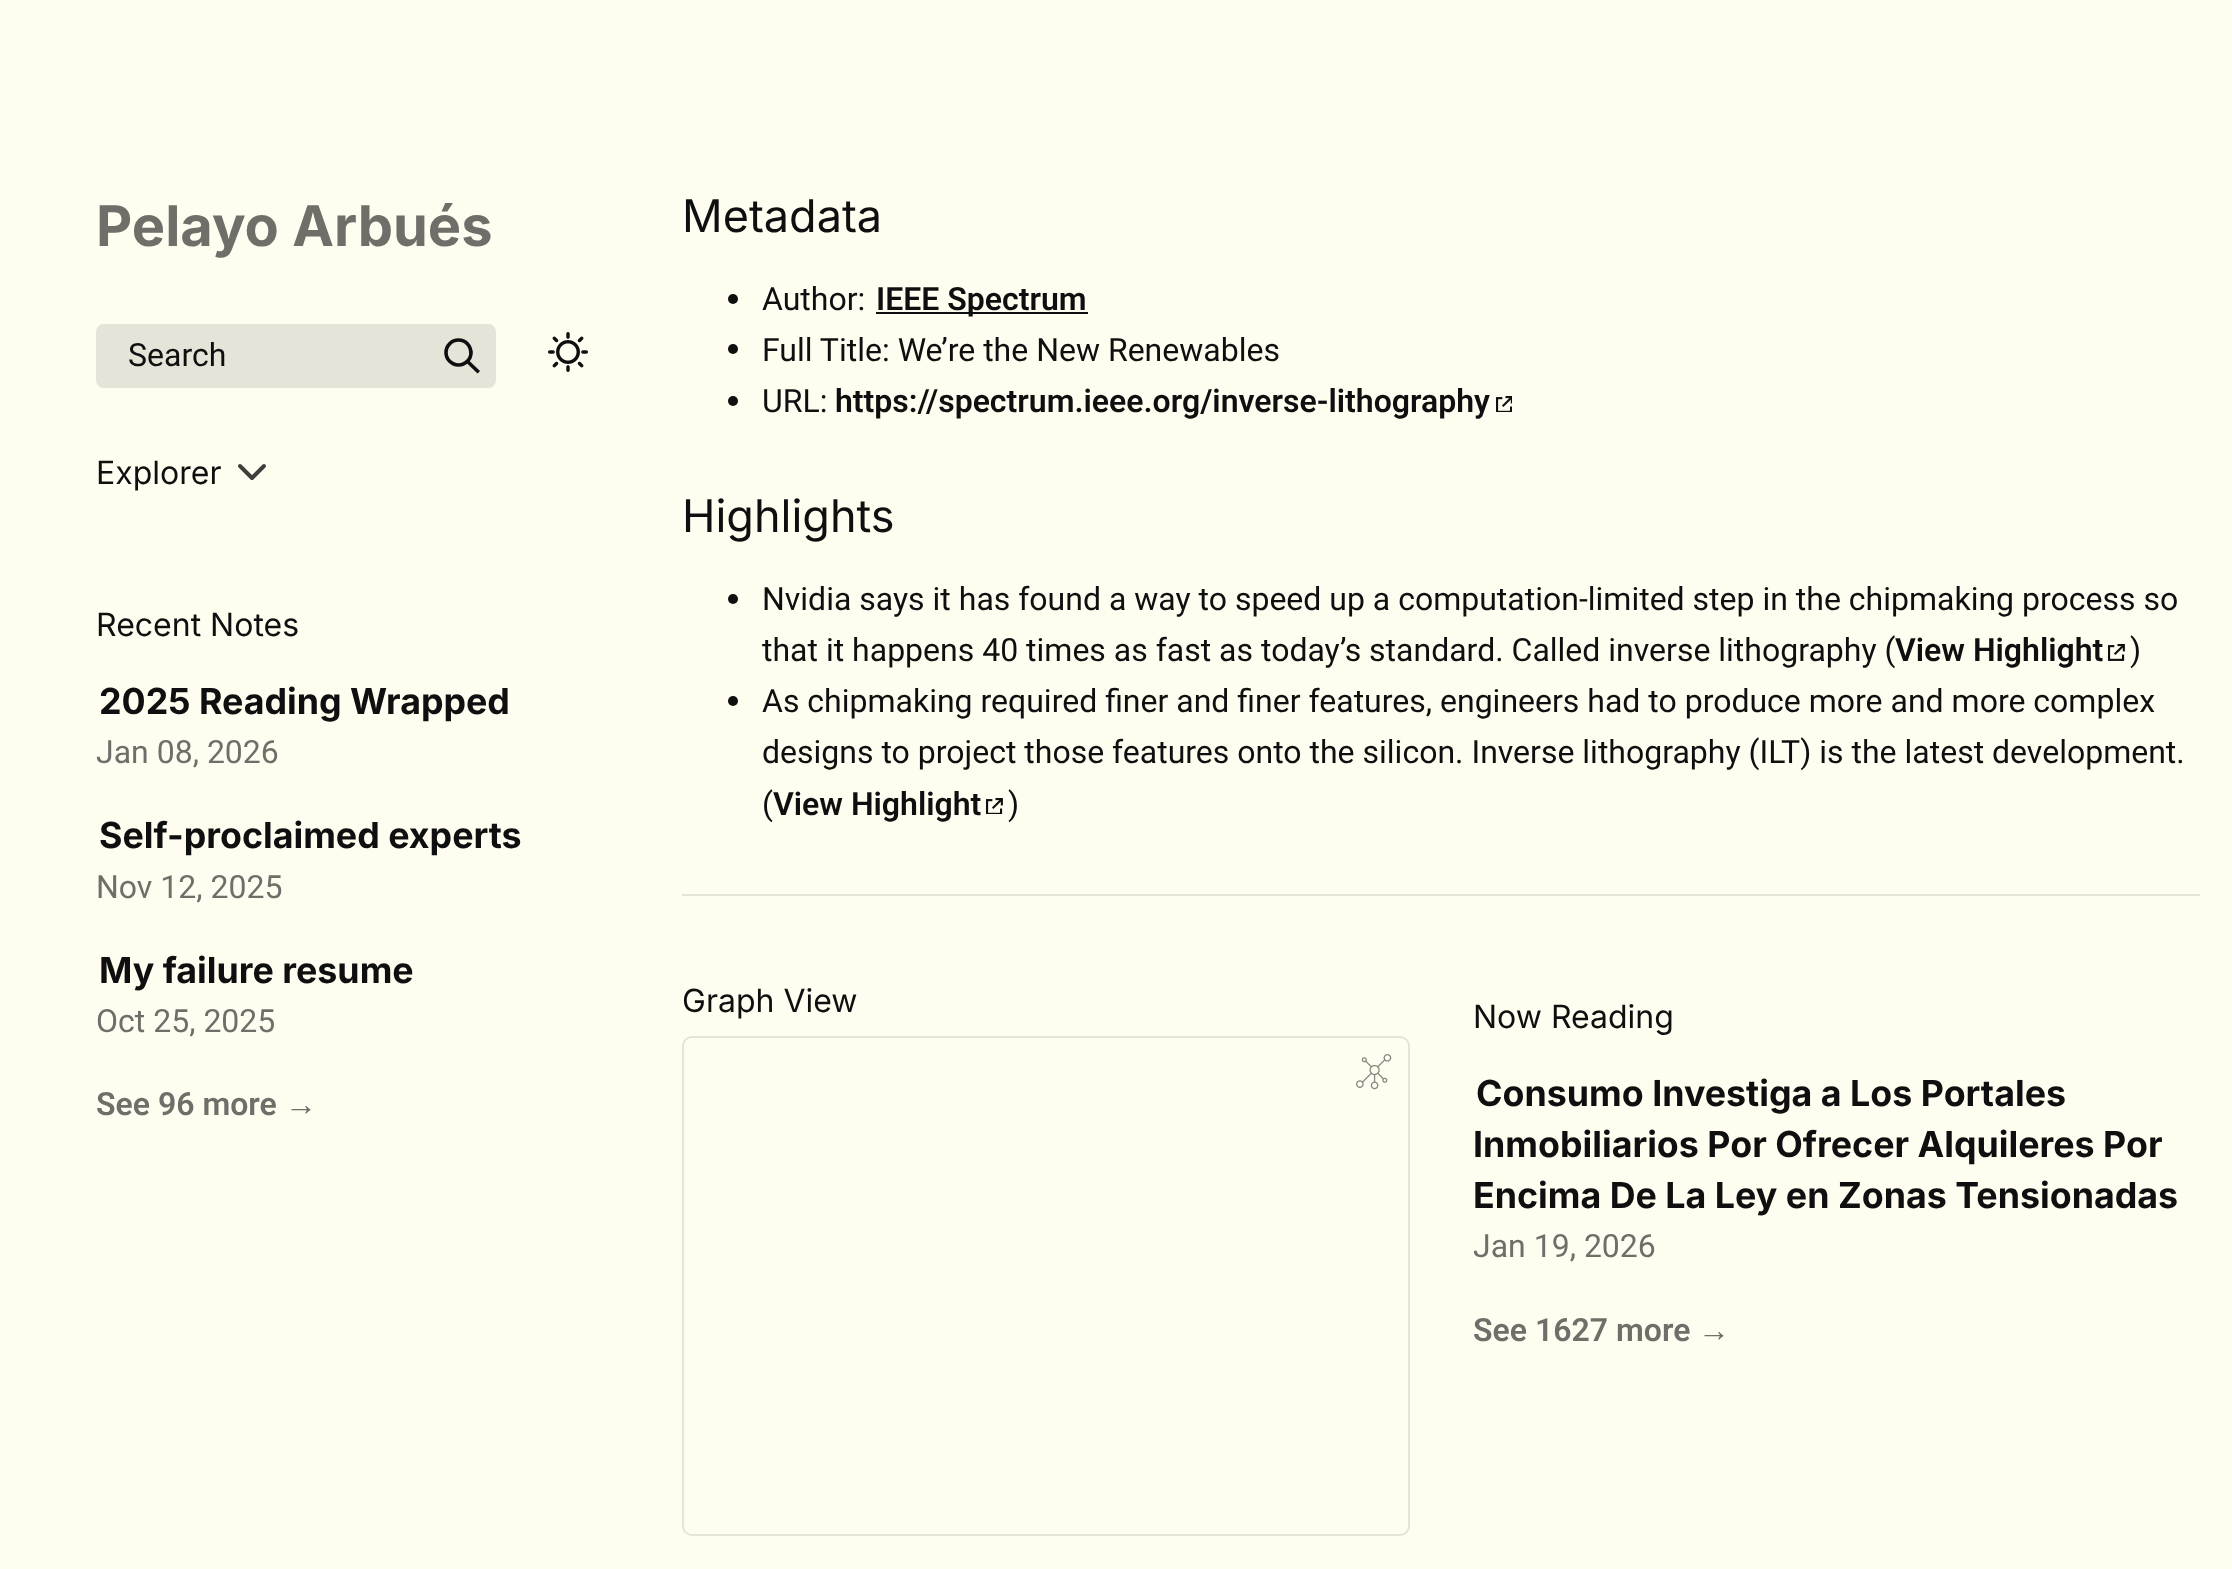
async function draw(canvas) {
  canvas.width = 2232;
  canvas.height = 1569;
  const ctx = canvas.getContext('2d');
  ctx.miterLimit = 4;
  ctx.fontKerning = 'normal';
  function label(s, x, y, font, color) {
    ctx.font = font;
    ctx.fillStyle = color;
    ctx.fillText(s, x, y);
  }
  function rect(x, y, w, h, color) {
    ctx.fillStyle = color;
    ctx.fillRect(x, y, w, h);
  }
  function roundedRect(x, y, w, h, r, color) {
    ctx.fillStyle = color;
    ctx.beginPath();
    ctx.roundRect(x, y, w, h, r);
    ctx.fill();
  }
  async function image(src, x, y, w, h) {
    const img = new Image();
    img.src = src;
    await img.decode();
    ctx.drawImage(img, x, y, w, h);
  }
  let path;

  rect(0, 0, 2232, 1569, '#fffcf0');
  label('Pelayo Arbués', 96, 246, 'bold 56px Inter', '#6f6e69');
  roundedRect(96, 324, 400, 64, 8, '#e6e4d9');
  label('Search', 128, 366, '32px Roboto', '#100f0f');
  path = new Path2D('M477.5 371L467.5 361.5');
  ctx.strokeStyle = '#100f0f';
  ctx.lineWidth = 3.6;
  ctx.lineCap = 'square';
  ctx.stroke(path);
  ctx.beginPath();
  ctx.arc(458.5, 352.5, 12.5, 0, 2 * Math.PI);
  ctx.stroke();
  await image('assets/img1.png', 548, 332, 40, 40);
  label('Explorer', 96, 484, '32px Inter', '#100f0f');
  path = new Path2D('M240 466L252 478L264 466');
  ctx.strokeStyle = '#403e3c';
  ctx.lineWidth = 4;
  ctx.lineCap = 'round';
  ctx.lineJoin = 'round';
  ctx.stroke(path);
  label('Recent Notes', 96, 636, '32px Inter', '#100f0f');
  label('2025 Reading Wrapped', 99, 714, 'bold 35.8px Inter', '#100f0f');
  label('Jan 08, 2026', 96, 763, '32px Roboto', '#6f6e69');
  label('Self-proclaimed experts', 99, 848, 'bold 35.8px Inter', '#100f0f');
  label('Nov 12, 2025', 96, 898, '32px Roboto', '#6f6e69');
  label('My failure resume', 99, 983, 'bold 35.8px Inter', '#100f0f');
  label('Oct 25, 2025', 96, 1032, '32px Roboto', '#6f6e69');
  label('See 96 more', 96, 1115, '600 32px Roboto', '#6f6e69');
  label('→', 285, 1115, 'bold 32px Liberation Sans', '#6f6e69');
  label('Metadata', 682, 232, '45px Inter', '#100f0f');
  ctx.beginPath();
  ctx.arc(733, 299, 5, 0, 2 * Math.PI);
  ctx.fill();
  label('Author:', 762, 310, '32px Roboto', '#100f0f');
  rect(876, 312, 212, 2, '#100f0f');
  label('IEEE Spectrum', 876, 310, '600 32px Roboto', '#100f0f');
  ctx.beginPath();
  ctx.arc(733, 349, 5, 0, 2 * Math.PI);
  ctx.fill();
  label('Full Title: We’re the New Renewables', 762, 361, '32px Roboto', '#100f0f');
  ctx.beginPath();
  ctx.arc(733, 401, 5, 0, 2 * Math.PI);
  ctx.fill();
  label('URL:', 762, 412, '32px Roboto', '#100f0f');
  label('https://spectrum.ieee.org/inverse-lithography', 835, 412, '600 32px Roboto', '#100f0f');
  await image('assets/img2.png', 1496, 396, 16, 16);
  label('Highlights', 682, 532, '45px Inter', '#100f0f');
  ctx.beginPath();
  ctx.arc(733, 599, 5, 0, 2 * Math.PI);
  ctx.fill();
  label('Nvidia says it has found a way to speed up a computation-limited step in the chipmaking process so', 762, 610, '32px Roboto', '#100f0f');
  label('that it happens 40 times as fast as today’s standard. Called inverse lithography (', 762, 661, '32px Roboto', '#100f0f');
  label('View Highlight', 1895, 661, '600 32px Roboto', '#100f0f');
  await image('assets/img3.png', 2108, 644, 17, 17);
  label(')', 2130, 661, '32px Roboto', '#100f0f');
  ctx.beginPath();
  ctx.arc(733, 701, 5, 0, 2 * Math.PI);
  ctx.fill();
  label('As chipmaking required finer and finer features, engineers had to produce more and more complex', 762, 712, '32px Roboto', '#100f0f');
  label('designs to project those features onto the silicon. Inverse lithography (ILT) is the latest development.', 762, 763, '32px Roboto', '#100f0f');
  label('(', 762, 815, '32px Roboto', '#100f0f');
  label('View Highlight', 773, 815, '600 32px Roboto', '#100f0f');
  await image('assets/img4.png', 986, 798, 17, 16);
  label(')', 1008, 815, '32px Roboto', '#100f0f');
  rect(682, 894, 1518, 2, '#e6e4d9');
  label('Graph View', 682, 1012, '32px Inter', '#100f0f');
  ctx.beginPath();
  ctx.roundRect(683, 1037, 726, 498, 9);
  ctx.strokeStyle = '#e6e4d9';
  ctx.lineWidth = 2;
  ctx.lineJoin = 'miter';
  ctx.stroke();
  await image('assets/img5.png', 1356, 1054, 36, 36);
  label('Now Reading', 1473, 1028, '32px Inter', '#100f0f');
  label('Consumo Investiga a Los Portales', 1476, 1106, 'bold 35.8px Inter', '#100f0f');
  label('Inmobiliarios Por Ofrecer Alquileres Por', 1473, 1157, 'bold 35.8px Inter', '#100f0f');
  label('Encima De La Ley en Zonas Tensionadas', 1473, 1208, 'bold 35.8px Inter', '#100f0f');
  label('Jan 19, 2026', 1473, 1257, '32px Roboto', '#6f6e69');
  label('See 1627 more', 1473, 1341, '600 32px Roboto', '#6f6e69');
  label('→', 1698, 1341, 'bold 32px Liberation Sans', '#6f6e69');
}

draw(document.querySelector('canvas'));
